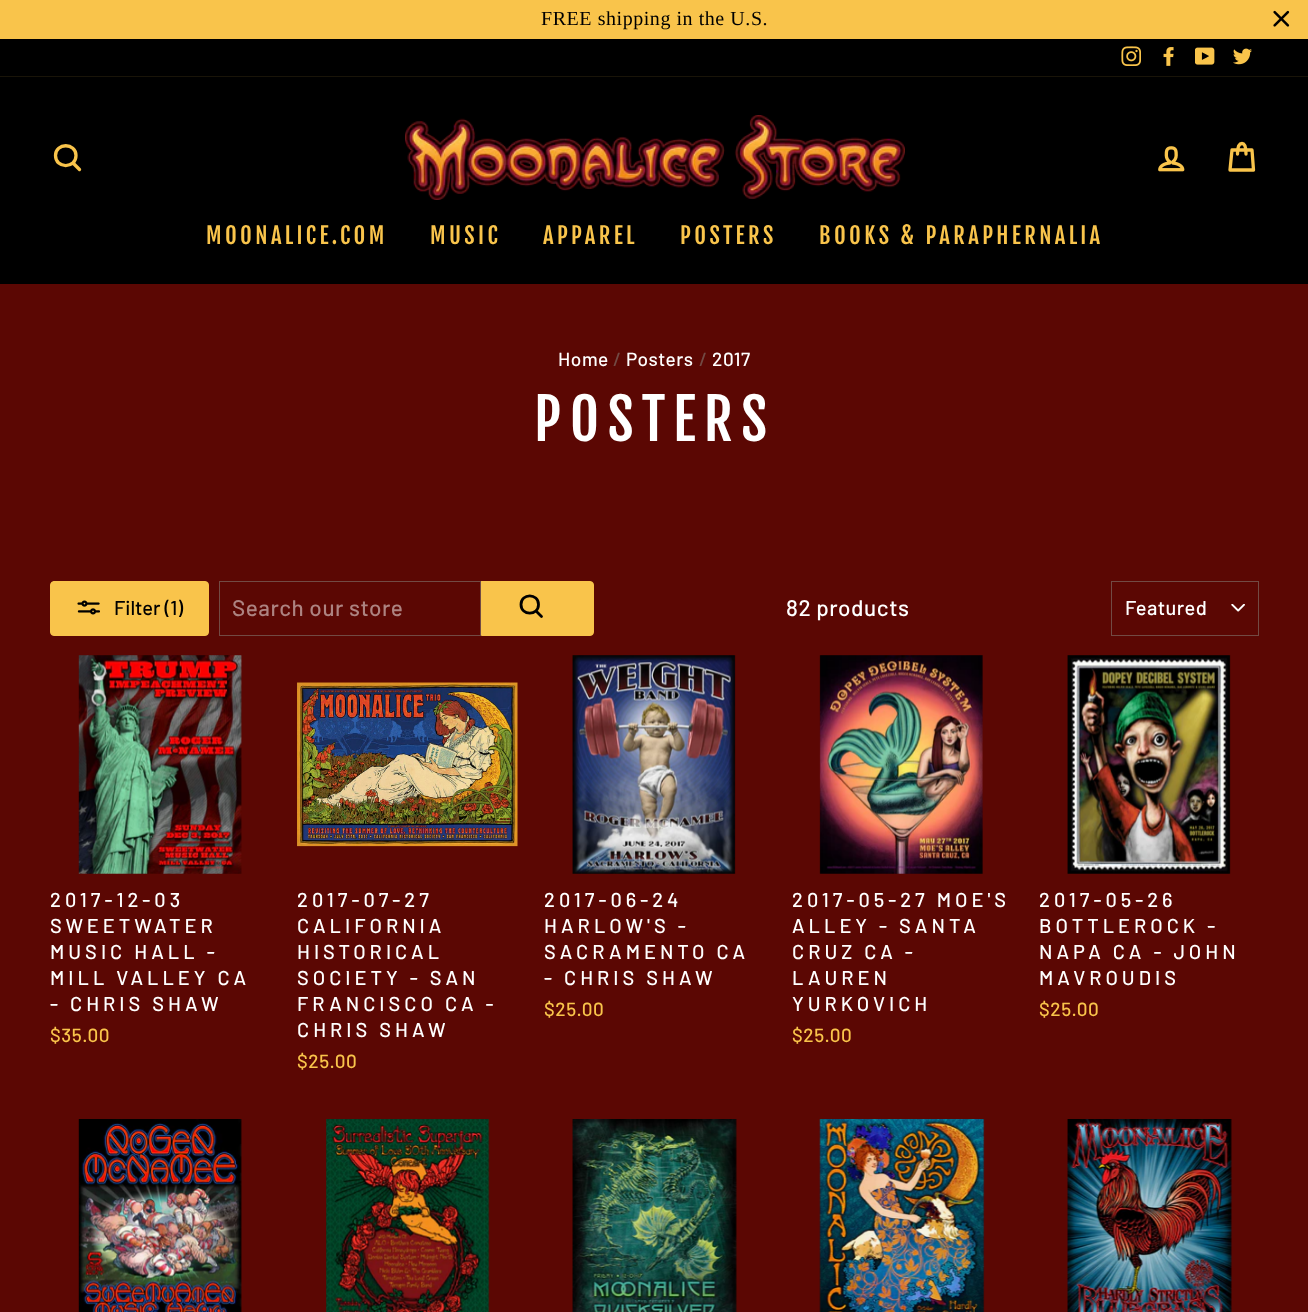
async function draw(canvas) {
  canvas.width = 1308;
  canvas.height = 1312;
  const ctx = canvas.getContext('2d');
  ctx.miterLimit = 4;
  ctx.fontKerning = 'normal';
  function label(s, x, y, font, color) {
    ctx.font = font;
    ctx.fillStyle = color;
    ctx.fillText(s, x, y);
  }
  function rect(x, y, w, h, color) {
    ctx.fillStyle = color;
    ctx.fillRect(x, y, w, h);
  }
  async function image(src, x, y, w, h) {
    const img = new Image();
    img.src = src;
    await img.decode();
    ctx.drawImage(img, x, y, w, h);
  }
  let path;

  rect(0, 0, 1308, 1312, '#5b0703');
  rect(0, 0, 1308, 39, '#f9c44b');
  ctx.letterSpacing = '0.55px';
  label('FREE shipping in the U.S.', 541, 25, '20px Liberation Serif', '#000');
  await image('assets/img1.png', 1273, 10, 17, 17);
  rect(0, 39, 1308, 37, '#000');
  await image('assets/img2.png', 1121, 46, 20, 20);
  await image('assets/img3.png', 1163, 47, 11, 19);
  await image('assets/img4.png', 1195, 47, 20, 18);
  await image('assets/img5.png', 1233, 48, 19, 17);
  rect(0, 77, 1308, 207, '#000');
  rect(0, 76, 1308, 1, '#191408');
  path = new Path2D('M76 155.5C76 169 55.5 169 55.5 155.5C55.5 142.5 76 142.5 76 155.5ZM79.5 169.5L73 163');
  ctx.strokeStyle = '#f9c44b';
  ctx.lineWidth = 3.3;
  ctx.lineCap = 'round';
  ctx.lineJoin = 'round';
  ctx.stroke(path);
  await image('assets/img6.png', 405, 115, 500, 85);
  await image('assets/img7.png', 1158, 146, 27, 26);
  path = new Path2D('M1237.5 154C1237.5 145.5 1239.5 143.5 1242 143.5C1244 143.5 1246 145.5 1246 154M1232 150H1252L1253.5 170H1230Z');
  ctx.stroke(path);
  ctx.letterSpacing = '3.4px';
  label('MOONALICE.COM', 206, 244, '22.5px Fjalla One', '#f9c44b');
  label('MUSIC', 430, 244, '22.5px Fjalla One', '#f9c44b');
  label('APPAREL', 543, 244, '22.5px Fjalla One', '#f9c44b');
  label('POSTERS', 680, 244, '22.5px Fjalla One', '#f9c44b');
  label('BOOKS & PARAPHERNALIA', 819, 244, '22.5px Fjalla One', '#f9c44b');
  ctx.letterSpacing = '0.55px';
  label('Home', 558, 366, '500 19px Barlow', '#fff');
  label('/', 613, 366, '500 19px Barlow', '#724a44');
  label('Posters', 626, 366, '500 19px Barlow', '#fff');
  label('/', 699, 366, '500 19px Barlow', '#724a44');
  label('2017', 712, 366, '500 19px Barlow', '#fff');
  ctx.letterSpacing = '8.5px';
  label('POSTERS', 534, 441, '56.25px Fjalla One', '#fff');
  ctx.fillStyle = '#f9c44b';
  ctx.beginPath();
  ctx.roundRect(50.5, 581.5, 158, 54, 3.5);
  ctx.fill();
  ctx.lineWidth = 1;
  ctx.lineJoin = 'miter';
  ctx.stroke();
  await image('assets/img8.png', 77, 600, 23, 15);
  ctx.letterSpacing = '0px';
  label('Filter (1)', 114, 615, '500 20px Barlow', '#000');
  ctx.strokeStyle = '#724a44';
  ctx.strokeRect(219.5, 581.5, 261, 54);
  ctx.letterSpacing = '0.55px';
  label('Search our store', 232, 616, '500 22.5px Barlow', '#ad8381');
  ctx.fillStyle = '#f9c44b';
  ctx.beginPath();
  ctx.roundRect(481.5, 581.5, 112, 54, [0, 3.5, 3.5, 0]);
  ctx.fill();
  ctx.strokeStyle = '#f9c44b';
  ctx.stroke();
  path = new Path2D('M538.5 604.5C538.5 616 521 616 521 604.5C521 593 538.5 593 538.5 604.5ZM541.5 616.5L536 611');
  ctx.strokeStyle = '#000';
  ctx.lineWidth = 2.8;
  ctx.lineJoin = 'round';
  ctx.stroke(path);
  label('82 products', 786, 616, '500 22.5px Barlow', '#fff');
  await image('assets/img9.png', 1231, 604, 14, 8);
  ctx.strokeStyle = '#724a44';
  ctx.lineWidth = 1;
  ctx.lineJoin = 'miter';
  ctx.strokeRect(1111.5, 581.5, 147, 54);
  ctx.letterSpacing = '0.5px';
  label('Featured', 1125, 615, '500 20px Barlow', '#fff');
  await image('assets/img10.png', 78, 655, 164, 219);
  ctx.letterSpacing = '4px';
  label('2017-12-03', 50, 907, '500 20px Barlow', '#fff');
  label('SWEETWATER', 50, 933, '500 20px Barlow', '#fff');
  label('MUSIC HALL -', 50, 959, '500 20px Barlow', '#fff');
  label('MILL VALLEY CA', 50, 985, '500 20px Barlow', '#fff');
  label('- CHRIS SHAW', 50, 1011, '500 20px Barlow', '#fff');
  ctx.letterSpacing = '0.55px';
  label('$35.00', 50, 1042, '500 19px Barlow', '#f9c44b');
  await image('assets/img11.png', 297, 682, 221, 165);
  ctx.letterSpacing = '4px';
  label('2017-07-27', 297, 907, '500 20px Barlow', '#fff');
  label('CALIFORNIA', 297, 933, '500 20px Barlow', '#fff');
  label('HISTORICAL', 297, 959, '500 20px Barlow', '#fff');
  label('SOCIETY - SAN', 297, 985, '500 20px Barlow', '#fff');
  label('FRANCISCO CA -', 297, 1011, '500 20px Barlow', '#fff');
  label('CHRIS SHAW', 297, 1037, '500 20px Barlow', '#fff');
  ctx.letterSpacing = '0.55px';
  label('$25.00', 297, 1068, '500 19px Barlow', '#f9c44b');
  await image('assets/img12.png', 572, 655, 164, 219);
  ctx.letterSpacing = '4px';
  label('2017-06-24', 544, 907, '500 20px Barlow', '#fff');
  label('HARLOW\'S -', 544, 933, '500 20px Barlow', '#fff');
  label('SACRAMENTO CA', 544, 959, '500 20px Barlow', '#fff');
  label('- CHRIS SHAW', 544, 985, '500 20px Barlow', '#fff');
  ctx.letterSpacing = '0.55px';
  label('$25.00', 544, 1016, '500 19px Barlow', '#f9c44b');
  await image('assets/img13.png', 819, 655, 164, 219);
  ctx.letterSpacing = '4px';
  label('2017-05-27 MOE\'S', 792, 907, '500 20px Barlow', '#fff');
  label('ALLEY - SANTA', 792, 933, '500 20px Barlow', '#fff');
  label('CRUZ CA -', 792, 959, '500 20px Barlow', '#fff');
  label('LAUREN', 792, 985, '500 20px Barlow', '#fff');
  label('YURKOVICH', 792, 1011, '500 20px Barlow', '#fff');
  ctx.letterSpacing = '0.55px';
  label('$25.00', 792, 1042, '500 19px Barlow', '#f9c44b');
  await image('assets/img14.png', 1067, 655, 164, 219);
  ctx.letterSpacing = '4px';
  label('2017-05-26', 1039, 907, '500 20px Barlow', '#fff');
  label('BOTTLEROCK -', 1039, 933, '500 20px Barlow', '#fff');
  label('NAPA CA - JOHN', 1039, 959, '500 20px Barlow', '#fff');
  label('MAVROUDIS', 1039, 985, '500 20px Barlow', '#fff');
  ctx.letterSpacing = '0.55px';
  label('$25.00', 1039, 1016, '500 19px Barlow', '#f9c44b');
  await image('assets/img15.png', 78, 1119, 164, 193);
  await image('assets/img16.png', 326, 1119, 164, 193);
  await image('assets/img17.png', 572, 1119, 165, 193);
  await image('assets/img18.png', 819, 1119, 166, 193);
  await image('assets/img19.png', 1067, 1119, 165, 193);
}

draw(document.querySelector('canvas'));
